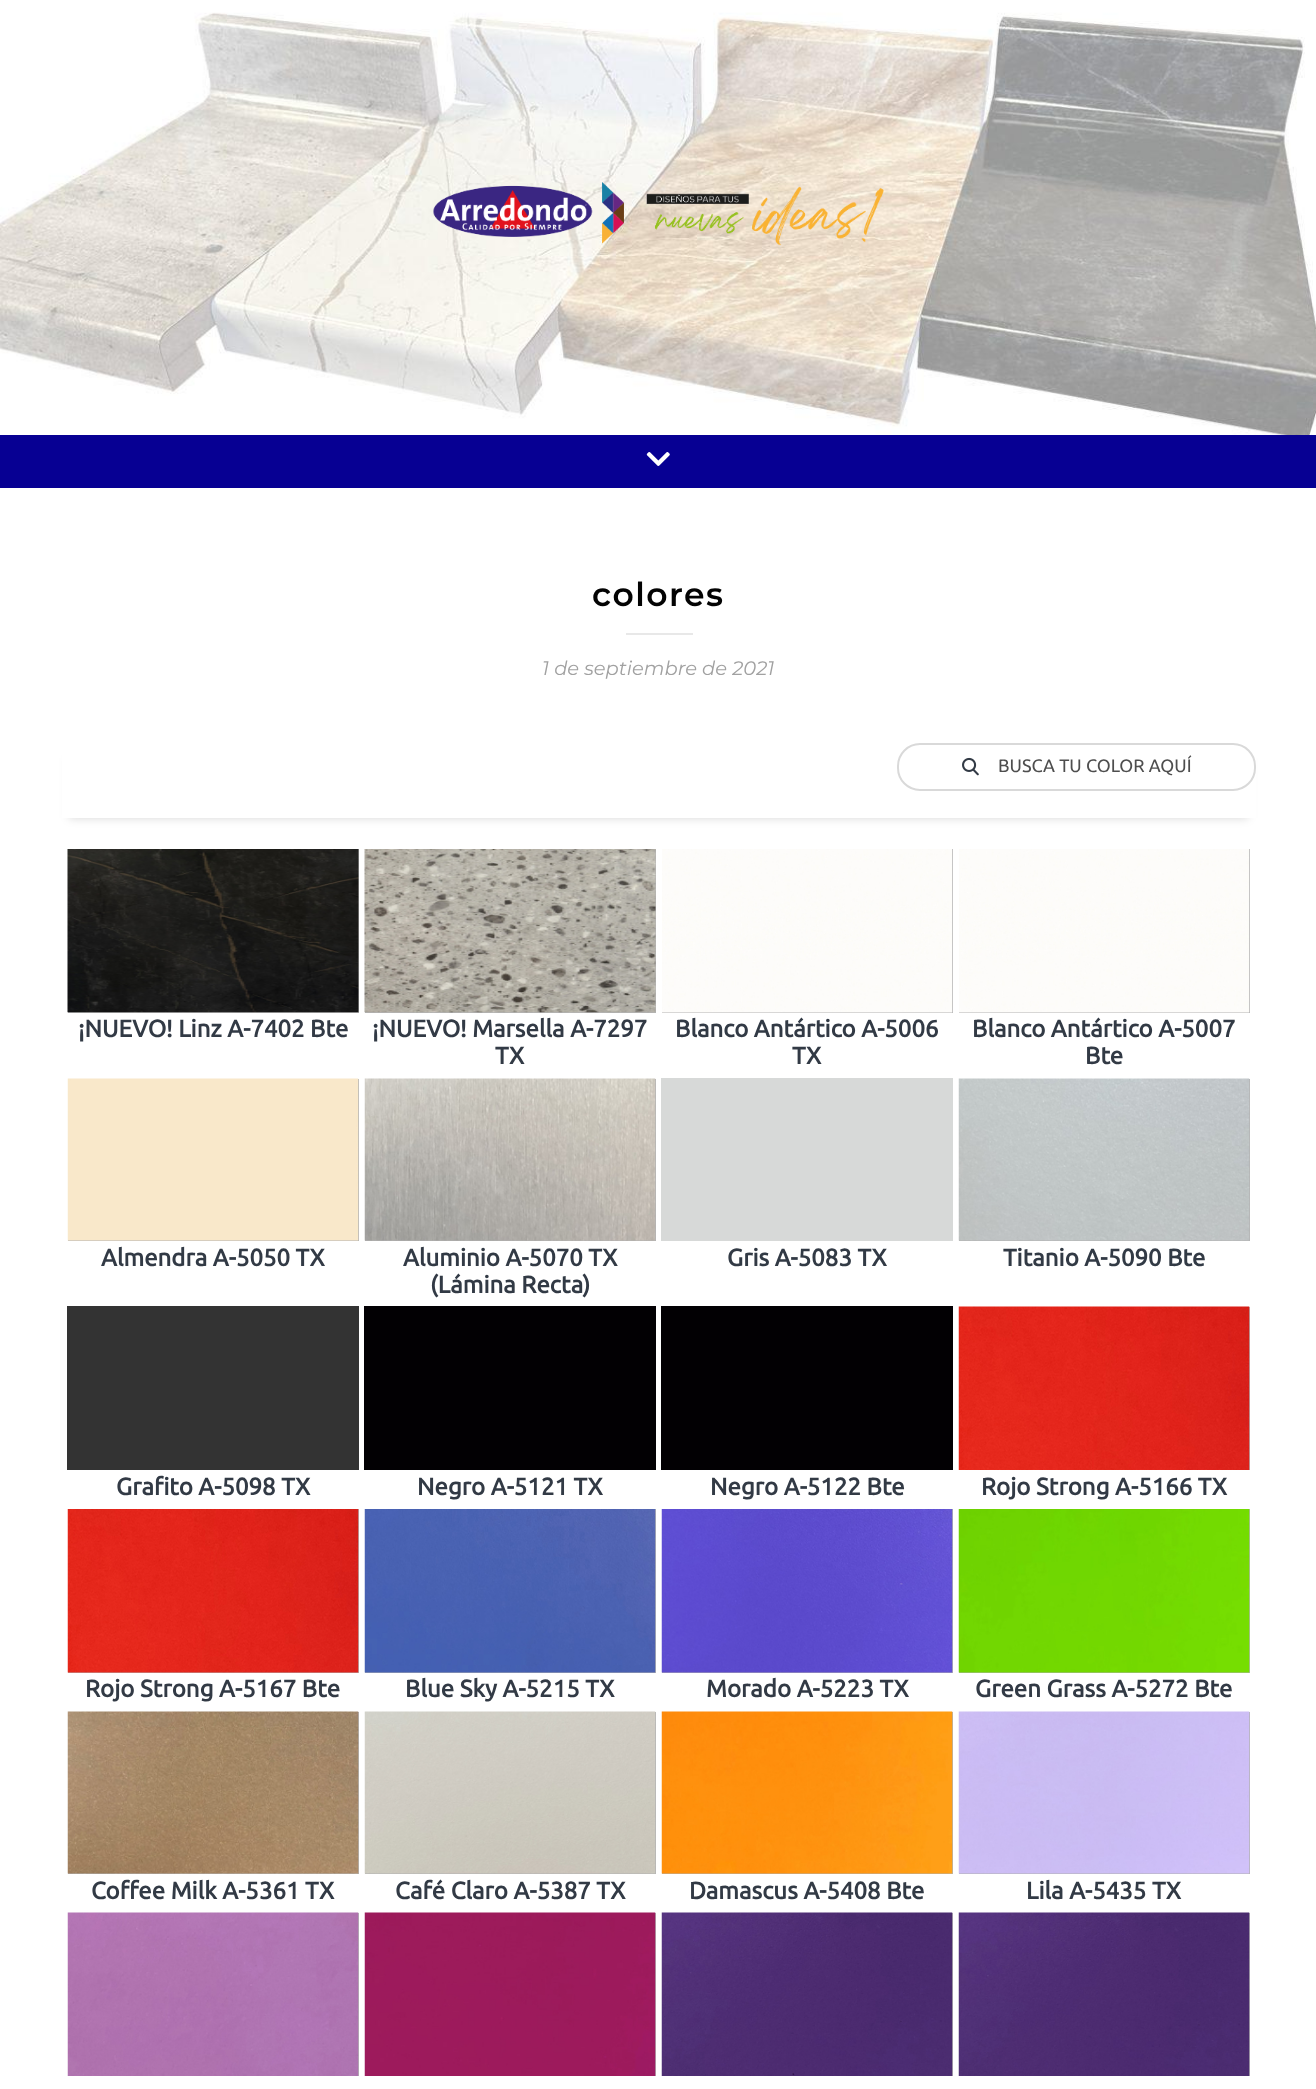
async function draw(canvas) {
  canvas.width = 1316;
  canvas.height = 2089;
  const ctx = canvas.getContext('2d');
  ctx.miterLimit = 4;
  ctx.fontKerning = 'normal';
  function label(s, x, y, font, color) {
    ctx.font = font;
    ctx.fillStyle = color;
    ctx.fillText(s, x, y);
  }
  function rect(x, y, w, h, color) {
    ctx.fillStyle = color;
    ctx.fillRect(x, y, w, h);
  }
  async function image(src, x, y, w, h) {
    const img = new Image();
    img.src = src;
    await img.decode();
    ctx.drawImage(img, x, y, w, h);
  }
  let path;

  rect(0, 0, 1316, 2089, '#fff');
  await image('assets/img1.png', 0, 12, 1316, 423);
  await image('assets/img2.png', 433, 182, 451, 64);
  rect(0, 435, 1316, 53, '#070093');
  await image('assets/img3.png', 646, 452, 24, 14);
  ctx.letterSpacing = '1.5px';
  label('colores', 592, 606, '600 33px Montserrat', '#030303');
  rect(626, 633, 67, 2, '#e8e8e8');
  ctx.letterSpacing = '0px';
  label('1 de septiembre de 2021', 542, 675, 'italic 100 19.5px Montserrat', '#a1a1a1');
  ctx.save();
  path = new Path2D('M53 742H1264V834H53ZM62 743H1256V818H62Z');
  ctx.clip(path, 'evenodd');
  ctx.fillStyle = '#00000029';
  ctx.filter = 'blur(5px)';
  ctx.beginPath();
  ctx.rect(69, 758, 1179, 60);
  ctx.fill();
  ctx.filter = 'none';
  ctx.restore();
  ctx.beginPath();
  ctx.roundRect(898, 744, 357, 46, 22);
  ctx.strokeStyle = '#d9d9d9';
  ctx.lineWidth = 2;
  ctx.stroke();
  await image('assets/img4.png', 962, 757, 17, 19);
  label('BUSCA TU COLOR AQUÍ', 998, 772, '18px Ubuntu', '#4e4e4e');
  rect(68, 849, 291, 164, '#b3b3b3');
  await image('assets/img5.png', 67, 849, 292, 164);
  label('¡NUEVO! Linz A-7402 Bte', 78, 1037, 'bold 24px Ubuntu', '#323a45');
  rect(365, 849, 291, 164, '#b3b3b3');
  await image('assets/img6.png', 364, 849, 292, 164);
  label('¡NUEVO! Marsella A-7297', 372, 1037, 'bold 24px Ubuntu', '#323a45');
  label('TX', 495, 1064, 'bold 24px Ubuntu', '#323a45');
  rect(662, 849, 291, 164, '#b3b3b3');
  await image('assets/img7.png', 662, 849, 291, 164);
  label('Blanco Antártico A-5006', 675, 1037, 'bold 24px Ubuntu', '#323a45');
  label('TX', 792, 1064, 'bold 24px Ubuntu', '#323a45');
  rect(959, 849, 291, 164, '#b3b3b3');
  await image('assets/img8.png', 959, 849, 291, 164);
  label('Blanco Antártico A-5007', 972, 1037, 'bold 24px Ubuntu', '#323a45');
  label('Bte', 1085, 1064, 'bold 24px Ubuntu', '#323a45');
  rect(68, 1079, 291, 162, '#b3b3b3');
  await image('assets/img9.png', 67, 1078, 292, 163);
  label('Almendra A-5050 TX', 101, 1266, 'bold 24px Ubuntu', '#323a45');
  rect(365, 1079, 291, 162, '#b3b3b3');
  await image('assets/img10.png', 364, 1078, 292, 163);
  label('Aluminio A-5070 TX', 403, 1266, 'bold 24px Ubuntu', '#323a45');
  label('(Lámina Recta)', 430, 1293, 'bold 24px Ubuntu', '#323a45');
  rect(661, 1078, 292, 163, '#d7d9d8');
  label('Gris A-5083 TX', 727, 1266, 'bold 24px Ubuntu', '#323a45');
  rect(959, 1079, 291, 162, '#b3b3b3');
  await image('assets/img11.png', 958, 1078, 292, 163);
  label('Titanio A-5090 Bte', 1003, 1266, 'bold 24px Ubuntu', '#323a45');
  rect(67, 1306, 292, 164, '#333');
  label('Grafito A-5098 TX', 116, 1495, 'bold 24px Ubuntu', '#323a45');
  rect(364, 1306, 292, 164, '#020003');
  label('Negro A-5121 TX', 417, 1495, 'bold 24px Ubuntu', '#323a45');
  rect(661, 1306, 292, 164, '#020003');
  label('Negro A-5122 Bte', 710, 1495, 'bold 24px Ubuntu', '#323a45');
  rect(1249, 1307, 1, 163, '#b3b3b3');
  await image('assets/img12.png', 958, 1306, 292, 164);
  label('Rojo Strong A-5166 TX', 981, 1495, 'bold 24px Ubuntu', '#323a45');
  rect(68, 1509, 291, 164, '#b3b3b3');
  await image('assets/img13.png', 67, 1509, 292, 164);
  label('Rojo Strong A-5167 Bte', 85, 1697, 'bold 24px Ubuntu', '#323a45');
  rect(365, 1509, 291, 164, '#b3b3b3');
  await image('assets/img14.png', 364, 1509, 292, 164);
  label('Blue Sky A-5215 TX', 405, 1697, 'bold 24px Ubuntu', '#323a45');
  rect(662, 1509, 291, 164, '#b3b3b3');
  await image('assets/img15.png', 661, 1509, 292, 164);
  label('Morado A-5223 TX', 706, 1697, 'bold 24px Ubuntu', '#323a45');
  rect(959, 1509, 291, 164, '#b3b3b3');
  await image('assets/img16.png', 958, 1509, 292, 164);
  label('Green Grass A-5272 Bte', 975, 1697, 'bold 24px Ubuntu', '#323a45');
  rect(68, 1712, 291, 162, '#b3b3b3');
  await image('assets/img17.png', 67, 1711, 292, 163);
  label('Coffee Milk A-5361 TX', 91, 1899, 'bold 24px Ubuntu', '#323a45');
  rect(365, 1712, 291, 162, '#b3b3b3');
  await image('assets/img18.png', 364, 1711, 292, 163);
  label('Café Claro A-5387 TX', 395, 1899, 'bold 24px Ubuntu', '#323a45');
  rect(662, 1712, 291, 162, '#b3b3b3');
  await image('assets/img19.png', 661, 1711, 292, 163);
  label('Damascus A-5408 Bte', 689, 1899, 'bold 24px Ubuntu', '#323a45');
  rect(959, 1712, 291, 162, '#b3b3b3');
  await image('assets/img20.png', 958, 1711, 292, 163);
  label('Lila A-5435 TX', 1026, 1899, 'bold 24px Ubuntu', '#323a45');
  rect(358, 1913, 1, 163, '#b3b3b3');
  await image('assets/img21.png', 67, 1912, 292, 164);
  rect(655, 1913, 1, 163, '#b3b3b3');
  await image('assets/img22.png', 364, 1912, 292, 164);
  rect(952, 1913, 1, 163, '#b3b3b3');
  await image('assets/img23.png', 661, 1912, 292, 164);
  rect(1249, 1913, 1, 163, '#b3b3b3');
  await image('assets/img24.png', 958, 1912, 292, 164);
}

draw(document.querySelector('canvas'));
